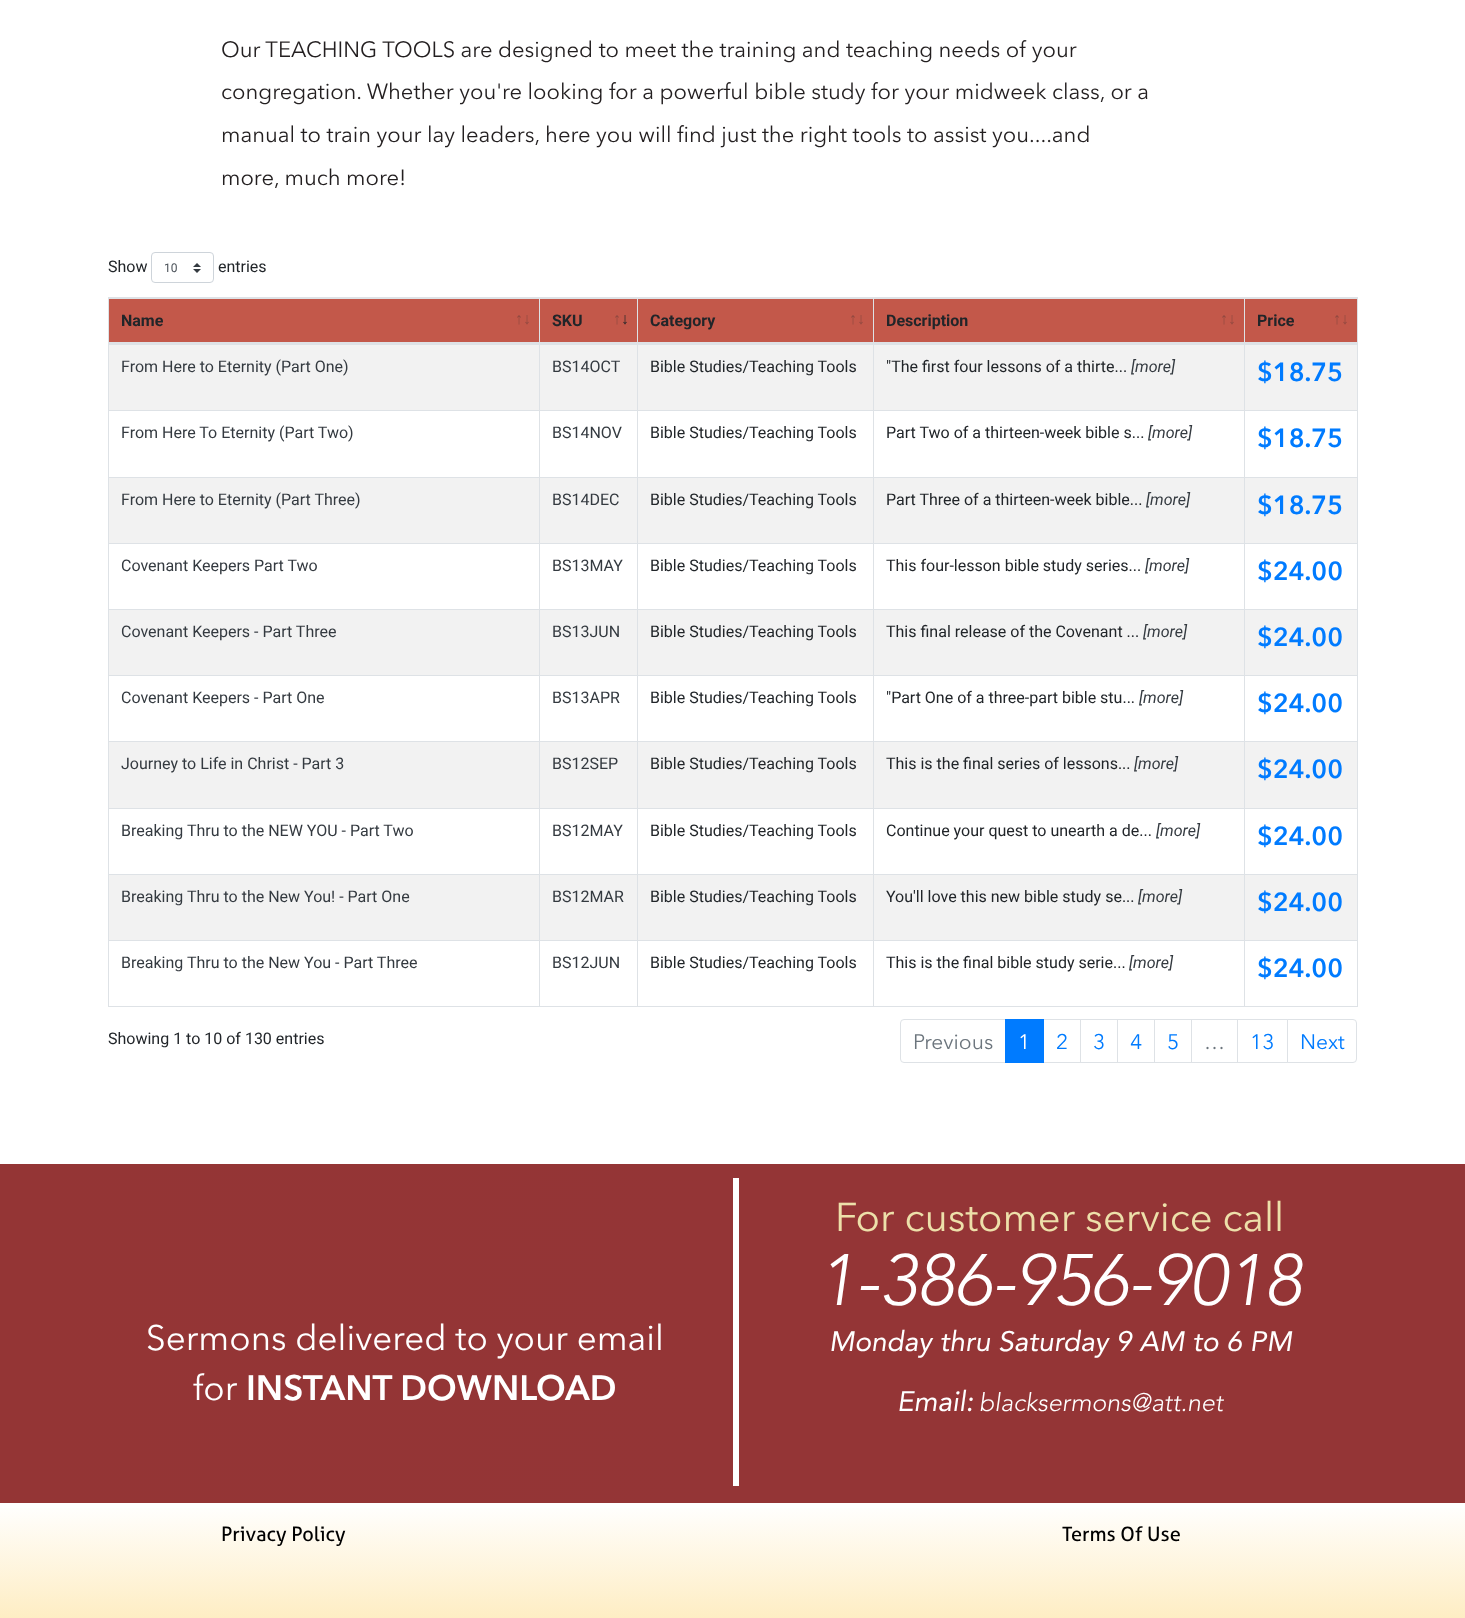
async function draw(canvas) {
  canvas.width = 1465;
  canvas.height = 1618;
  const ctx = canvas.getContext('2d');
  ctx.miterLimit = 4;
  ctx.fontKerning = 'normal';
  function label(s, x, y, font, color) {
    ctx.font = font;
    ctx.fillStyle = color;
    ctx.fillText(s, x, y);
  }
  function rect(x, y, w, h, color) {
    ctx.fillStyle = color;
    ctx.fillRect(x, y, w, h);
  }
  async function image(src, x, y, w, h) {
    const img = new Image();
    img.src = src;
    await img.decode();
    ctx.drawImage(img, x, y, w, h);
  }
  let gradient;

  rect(0, 0, 1465, 1618, '#fff');
  label('Our TEACHING TOOLS are designed to meet the training and teaching needs of your', 221, 57, '22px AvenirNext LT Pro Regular', '#231f20');
  label('congregation. Whether you\'re looking for a powerful bible study for your midweek class, or a', 221, 99, '22px AvenirNext LT Pro Regular', '#231f20');
  label('manual to train your lay leaders, here you will find just the right tools to assist you....and', 221, 142, '22px AvenirNext LT Pro Regular', '#231f20');
  label('more, much more!', 221, 185, '22px AvenirNext LT Pro Regular', '#231f20');
  label('Show', 108, 272, '16px Roboto', '#212529');
  await image('assets/img1.png', 193, 263, 8, 10);
  ctx.beginPath();
  ctx.roundRect(151.5, 252.5, 62, 30, 3.5);
  ctx.strokeStyle = '#ced4da';
  ctx.stroke();
  label('10', 164, 272, '12px Roboto', '#495057');
  label('entries', 218, 272, '16px Roboto', '#212529');
  ctx.strokeStyle = '#dee2e6';
  ctx.strokeRect(108.5, 297.5, 1249, 709);
  rect(109, 299, 1248, 43, '#c3584a');
  rect(109, 298, 1248, 1, '#dee2e6');
  rect(539, 298, 1, 46, '#dee2e6');
  rect(109, 342, 431, 2, '#dee2e6');
  label('Name', 121, 326, 'bold 16px Roboto', '#212529');
  label('↑↓', 515, 324, 'bold 16px Liberation Sans', '#924940');
  rect(637, 298, 1, 46, '#dee2e6');
  rect(540, 342, 98, 2, '#dee2e6');
  label('SKU', 552, 326, 'bold 16px Roboto', '#212529');
  label('↑', 613, 324, 'bold 16px Liberation Sans', '#924940');
  label('↓', 621, 324, 'bold 16px Liberation Sans', '#212529');
  rect(873, 298, 1, 46, '#dee2e6');
  rect(638, 342, 236, 2, '#dee2e6');
  label('Category', 650, 326, 'bold 16px Roboto', '#212529');
  label('↑↓', 849, 324, 'bold 16px Liberation Sans', '#924940');
  rect(1244, 298, 1, 46, '#dee2e6');
  rect(874, 342, 483, 2, '#dee2e6');
  label('Description', 886, 326, 'bold 16px Roboto', '#212529');
  label('↑↓', 1220, 324, 'bold 16px Liberation Sans', '#924940');
  label('Price', 1257, 326, 'bold 16px Roboto', '#212529');
  label('↑↓', 1333, 324, 'bold 16px Liberation Sans', '#924940');
  rect(109, 345, 1248, 65, '#f2f2f2');
  rect(109, 344, 1248, 1, '#dee2e6');
  rect(539, 344, 1, 66, '#dee2e6');
  label('From Here to Eternity (Part One)', 121, 372, '16px Roboto', '#343a40');
  rect(637, 344, 1, 66, '#dee2e6');
  label('BS14OCT', 552, 372, '16px Roboto', '#343a40');
  rect(873, 344, 1, 66, '#dee2e6');
  label('Bible Studies/Teaching Tools', 650, 372, '16px Roboto', '#212529');
  rect(1244, 344, 1, 66, '#dee2e6');
  label('"The first four lessons of a thirte...', 886, 372, '16px Roboto', '#212529');
  label('[more]', 1131, 372, 'italic 16px Roboto', '#343a40');
  label('$18.75', 1257, 381, 'bold 26px AvenirNext LT Pro Regular', '#007bff');
  rect(109, 410, 1248, 1, '#dee2e6');
  rect(539, 410, 1, 67, '#dee2e6');
  label('From Here To Eternity (Part Two)', 121, 438, '16px Roboto', '#343a40');
  rect(637, 410, 1, 67, '#dee2e6');
  label('BS14NOV', 552, 438, '16px Roboto', '#343a40');
  rect(873, 410, 1, 67, '#dee2e6');
  label('Bible Studies/Teaching Tools', 650, 438, '16px Roboto', '#212529');
  rect(1244, 410, 1, 67, '#dee2e6');
  label('Part Two of a thirteen-week bible s...', 886, 438, '16px Roboto', '#212529');
  label('[more]', 1148, 438, 'italic 16px Roboto', '#343a40');
  label('$18.75', 1257, 447, 'bold 26px AvenirNext LT Pro Regular', '#007bff');
  rect(109, 478, 1248, 65, '#f2f2f2');
  rect(109, 477, 1248, 1, '#dee2e6');
  rect(539, 477, 1, 66, '#dee2e6');
  label('From Here to Eternity (Part Three)', 121, 505, '16px Roboto', '#343a40');
  rect(637, 477, 1, 66, '#dee2e6');
  label('BS14DEC', 552, 505, '16px Roboto', '#343a40');
  rect(873, 477, 1, 66, '#dee2e6');
  label('Bible Studies/Teaching Tools', 650, 505, '16px Roboto', '#212529');
  rect(1244, 477, 1, 66, '#dee2e6');
  label('Part Three of a thirteen-week bible...', 886, 505, '16px Roboto', '#212529');
  label('[more]', 1146, 505, 'italic 16px Roboto', '#343a40');
  label('$18.75', 1257, 514, 'bold 26px AvenirNext LT Pro Regular', '#007bff');
  rect(109, 543, 1248, 1, '#dee2e6');
  rect(539, 543, 1, 66, '#dee2e6');
  label('Covenant Keepers Part Two', 121, 571, '16px Roboto', '#343a40');
  rect(637, 543, 1, 66, '#dee2e6');
  label('BS13MAY', 552, 571, '16px Roboto', '#343a40');
  rect(873, 543, 1, 66, '#dee2e6');
  label('Bible Studies/Teaching Tools', 650, 571, '16px Roboto', '#212529');
  rect(1244, 543, 1, 66, '#dee2e6');
  label('This four-lesson bible study series...', 886, 571, '16px Roboto', '#212529');
  label('[more]', 1145, 571, 'italic 16px Roboto', '#343a40');
  label('$24.00', 1257, 580, 'bold 26px AvenirNext LT Pro Regular', '#007bff');
  rect(109, 610, 1248, 65, '#f2f2f2');
  rect(109, 609, 1248, 1, '#dee2e6');
  rect(539, 609, 1, 66, '#dee2e6');
  label('Covenant Keepers - Part Three', 121, 637, '16px Roboto', '#343a40');
  rect(637, 609, 1, 66, '#dee2e6');
  label('BS13JUN', 552, 637, '16px Roboto', '#343a40');
  rect(873, 609, 1, 66, '#dee2e6');
  label('Bible Studies/Teaching Tools', 650, 637, '16px Roboto', '#212529');
  rect(1244, 609, 1, 66, '#dee2e6');
  label('This final release of the Covenant ...', 886, 637, '16px Roboto', '#212529');
  label('[more]', 1143, 637, 'italic 16px Roboto', '#343a40');
  label('$24.00', 1257, 646, 'bold 26px AvenirNext LT Pro Regular', '#007bff');
  rect(109, 675, 1248, 1, '#dee2e6');
  rect(539, 675, 1, 66, '#dee2e6');
  label('Covenant Keepers - Part One', 121, 703, '16px Roboto', '#343a40');
  rect(637, 675, 1, 66, '#dee2e6');
  label('BS13APR', 552, 703, '16px Roboto', '#343a40');
  rect(873, 675, 1, 66, '#dee2e6');
  label('Bible Studies/Teaching Tools', 650, 703, '16px Roboto', '#212529');
  rect(1244, 675, 1, 66, '#dee2e6');
  label('"Part One of a three-part bible stu...', 886, 703, '16px Roboto', '#212529');
  label('[more]', 1139, 703, 'italic 16px Roboto', '#343a40');
  label('$24.00', 1257, 712, 'bold 26px AvenirNext LT Pro Regular', '#007bff');
  rect(109, 742, 1248, 66, '#f2f2f2');
  rect(109, 741, 1248, 1, '#dee2e6');
  rect(539, 741, 1, 67, '#dee2e6');
  label('Journey to Life in Christ - Part 3', 121, 769, '16px Roboto', '#343a40');
  rect(637, 741, 1, 67, '#dee2e6');
  label('BS12SEP', 552, 769, '16px Roboto', '#343a40');
  rect(873, 741, 1, 67, '#dee2e6');
  label('Bible Studies/Teaching Tools', 650, 769, '16px Roboto', '#212529');
  rect(1244, 741, 1, 67, '#dee2e6');
  label('This is the final series of lessons...', 886, 769, '16px Roboto', '#212529');
  label('[more]', 1134, 769, 'italic 16px Roboto', '#343a40');
  label('$24.00', 1257, 778, 'bold 26px AvenirNext LT Pro Regular', '#007bff');
  rect(109, 808, 1248, 1, '#dee2e6');
  rect(539, 808, 1, 66, '#dee2e6');
  label('Breaking Thru to the NEW YOU - Part Two', 121, 836, '16px Roboto', '#343a40');
  rect(637, 808, 1, 66, '#dee2e6');
  label('BS12MAY', 552, 836, '16px Roboto', '#343a40');
  rect(873, 808, 1, 66, '#dee2e6');
  label('Bible Studies/Teaching Tools', 650, 836, '16px Roboto', '#212529');
  rect(1244, 808, 1, 66, '#dee2e6');
  label('Continue your quest to unearth a de...', 886, 836, '16px Roboto', '#212529');
  label('[more]', 1156, 836, 'italic 16px Roboto', '#343a40');
  label('$24.00', 1257, 845, 'bold 26px AvenirNext LT Pro Regular', '#007bff');
  rect(109, 875, 1248, 65, '#f2f2f2');
  rect(109, 874, 1248, 1, '#dee2e6');
  rect(539, 874, 1, 66, '#dee2e6');
  label('Breaking Thru to the New You! - Part One', 121, 902, '16px Roboto', '#343a40');
  rect(637, 874, 1, 66, '#dee2e6');
  label('BS12MAR', 552, 902, '16px Roboto', '#343a40');
  rect(873, 874, 1, 66, '#dee2e6');
  label('Bible Studies/Teaching Tools', 650, 902, '16px Roboto', '#212529');
  rect(1244, 874, 1, 66, '#dee2e6');
  label('You\'ll love this new bible study se...', 886, 902, '16px Roboto', '#212529');
  label('[more]', 1138, 902, 'italic 16px Roboto', '#343a40');
  label('$24.00', 1257, 911, 'bold 26px AvenirNext LT Pro Regular', '#007bff');
  rect(109, 940, 1248, 1, '#dee2e6');
  rect(539, 940, 1, 66, '#dee2e6');
  label('Breaking Thru to the New You - Part Three', 121, 968, '16px Roboto', '#343a40');
  rect(637, 940, 1, 66, '#dee2e6');
  label('BS12JUN', 552, 968, '16px Roboto', '#343a40');
  rect(873, 940, 1, 66, '#dee2e6');
  label('Bible Studies/Teaching Tools', 650, 968, '16px Roboto', '#212529');
  rect(1244, 940, 1, 66, '#dee2e6');
  label('This is the final bible study serie...', 886, 968, '16px Roboto', '#212529');
  label('[more]', 1129, 968, 'italic 16px Roboto', '#343a40');
  label('$24.00', 1257, 977, 'bold 26px AvenirNext LT Pro Regular', '#007bff');
  label('Showing 1 to 10 of 130 entries', 108, 1044, '16px Roboto', '#212529');
  ctx.beginPath();
  ctx.roundRect(900.5, 1019.5, 105, 43, [3.5, 0, 0, 3.5]);
  ctx.stroke();
  label('Previous', 913, 1049, '21px AvenirNext LT Pro Regular', '#6c757d');
  ctx.strokeRect(1043.5, 1019.5, 37, 43);
  rect(1005, 1019, 39, 44, '#007bff');
  label('1', 1018, 1049, '21px AvenirNext LT Pro Regular', '#fff');
  label('2', 1056, 1049, '21px AvenirNext LT Pro Regular', '#007bff');
  ctx.strokeRect(1080.5, 1019.5, 37, 43);
  label('3', 1093, 1049, '21px AvenirNext LT Pro Regular', '#007bff');
  ctx.strokeRect(1117.5, 1019.5, 37, 43);
  label('4', 1130, 1049, '21px AvenirNext LT Pro Regular', '#007bff');
  ctx.strokeRect(1154.5, 1019.5, 37, 43);
  label('5', 1167, 1049, '21px AvenirNext LT Pro Regular', '#007bff');
  ctx.strokeRect(1191.5, 1019.5, 46, 43);
  label('…', 1204, 1049, '21px AvenirNext LT Pro Regular', '#6c757d');
  ctx.strokeRect(1237.5, 1019.5, 50, 43);
  label('13', 1250, 1049, '21px AvenirNext LT Pro Regular', '#007bff');
  ctx.fillStyle = '#fff';
  ctx.beginPath();
  ctx.roundRect(1287.5, 1019.5, 69, 43, [0, 3.5, 3.5, 0]);
  ctx.fill();
  ctx.stroke();
  label('Next', 1300, 1049, '21px AvenirNext LT Pro Regular', '#007bff');
  gradient = ctx.createLinearGradient(0, 1334, 1465, 1334);
  gradient.addColorStop(0, '#943535');
  gradient.addColorStop(0.5, '#943536');
  gradient.addColorStop(0.99, '#943536');
  ctx.fillStyle = gradient;
  ctx.fillRect(0, 1164, 1465, 339);
  label('Sermons delivered to your email', 146, 1350, '35px AvenirNext LT Pro Regular', '#fff');
  label('for', 193, 1400, '35px AvenirNext LT Pro Regular', '#fff');
  label('INSTANT DOWNLOAD', 246, 1400, 'bold 35px AvenirNext LT Pro Regular', '#fff');
  rect(733, 1178, 6, 308, '#fff');
  label('For customer service call', 835, 1231, '40px AvenirNext LT Pro Regular', '#ede0aa');
  label('1-386-956-9018', 818, 1305, 'italic 300 72px Avenir', '#fff');
  label('Monday thru Saturday 9 AM to 6 PM', 829, 1351, 'italic 28px Avenir', '#fff');
  label('Email:', 897, 1411, 'italic 28px Avenir', '#fff');
  label('blacksermons@att.net', 979, 1411, 'italic 300 25px Avenir', '#fff');
  gradient = ctx.createLinearGradient(733, 1503, 733, 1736);
  gradient.addColorStop(0, '#fff');
  gradient.addColorStop(0.5, '#feedc3');
  gradient.addColorStop(0.99, '#fdcf66');
  ctx.fillStyle = gradient;
  ctx.fillRect(0, 1508, 1465, 110);
  label('Privacy Policy', 221, 1541, '20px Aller', '#000');
  label('Terms Of Use', 1062, 1541, '20px Aller', '#000');
}

draw(document.querySelector('canvas'));
